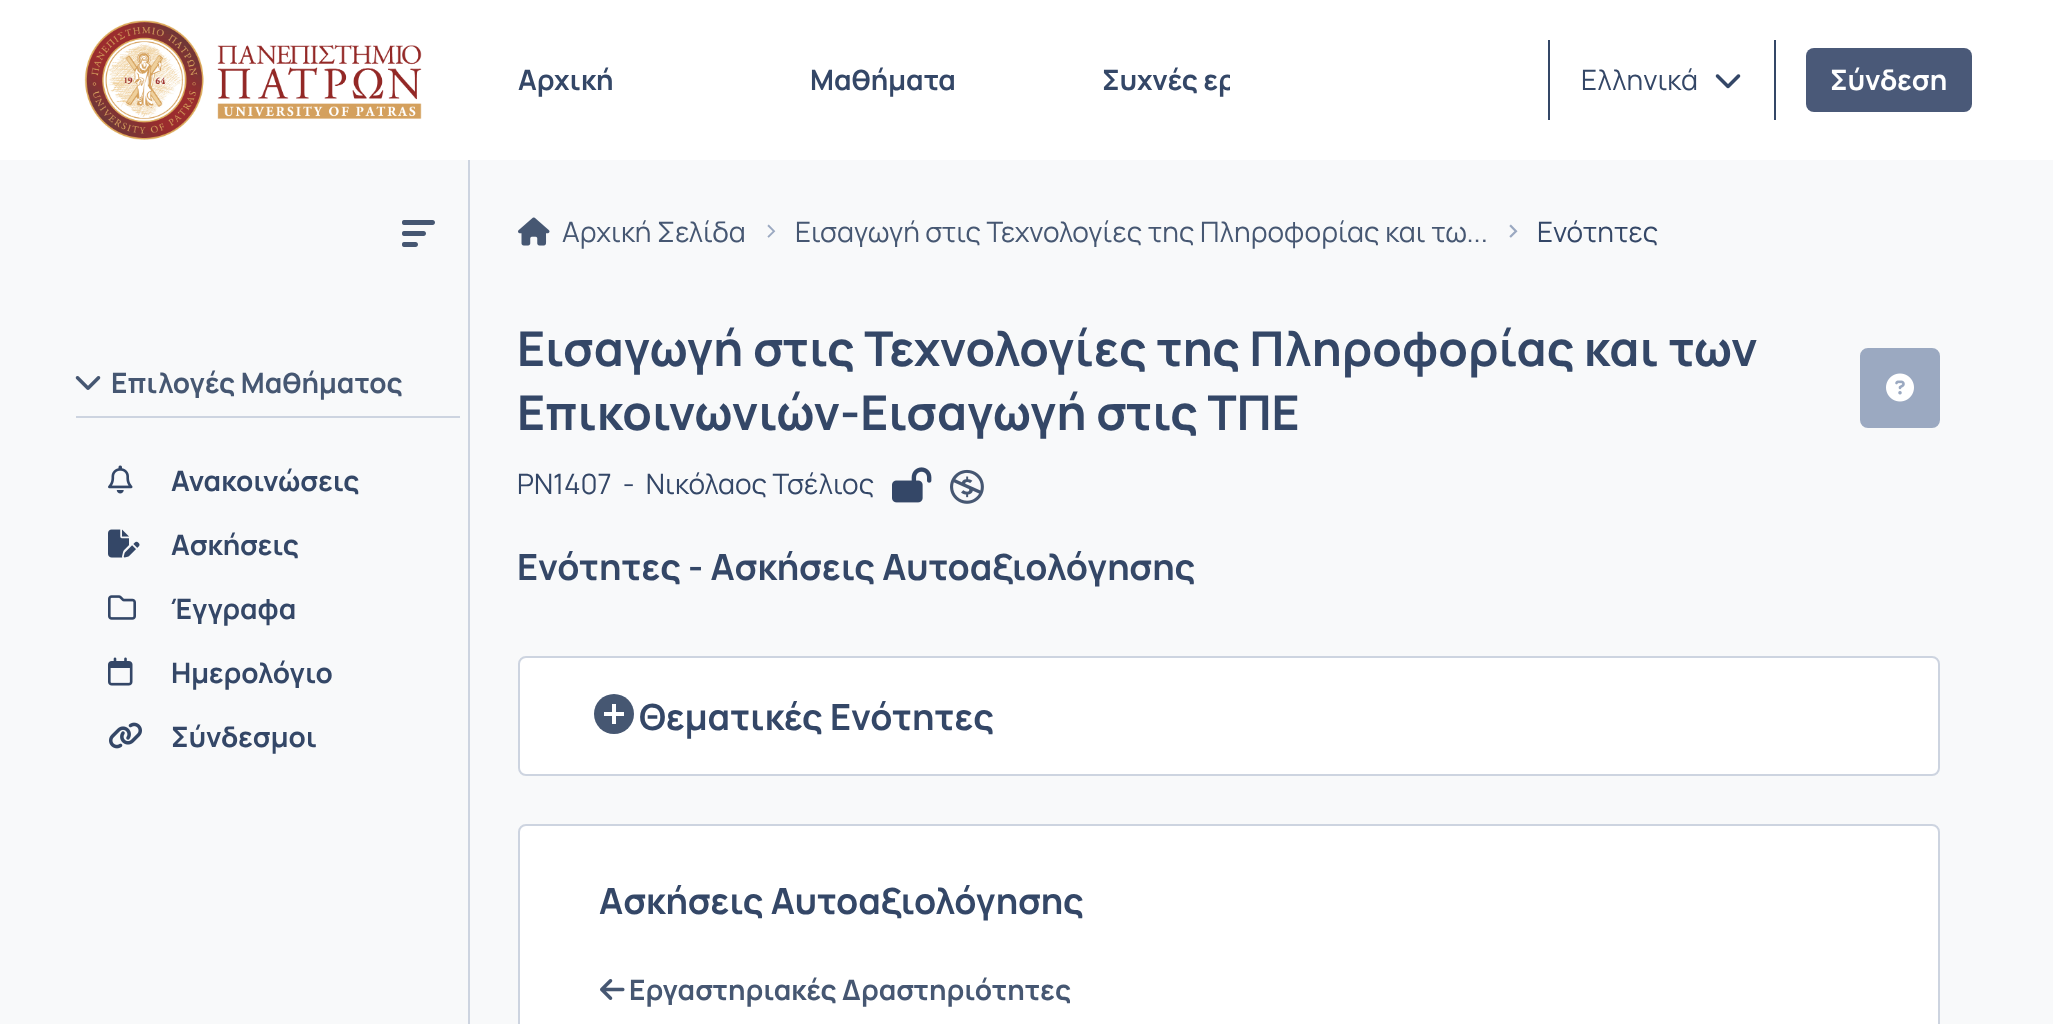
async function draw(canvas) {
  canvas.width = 2053;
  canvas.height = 1024;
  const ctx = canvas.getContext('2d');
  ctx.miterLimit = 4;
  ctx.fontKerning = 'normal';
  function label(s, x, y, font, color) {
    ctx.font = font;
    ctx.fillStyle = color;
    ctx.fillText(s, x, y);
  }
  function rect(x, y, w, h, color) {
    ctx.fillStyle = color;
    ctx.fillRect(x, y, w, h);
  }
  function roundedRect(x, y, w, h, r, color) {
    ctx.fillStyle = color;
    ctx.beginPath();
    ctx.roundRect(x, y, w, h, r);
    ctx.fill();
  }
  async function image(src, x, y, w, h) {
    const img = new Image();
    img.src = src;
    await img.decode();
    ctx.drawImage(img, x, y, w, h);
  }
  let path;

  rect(0, 0, 2053, 1024, '#f8f9fa');
  rect(0, 0, 2053, 160, '#fff');
  await image('assets/img1.png', 84, 20, 338, 120);
  label('Αρχική', 518, 90, 'bold 28px Manrope', '#344767');
  label('Μαθήματα', 810, 90, 'bold 28px Manrope', '#344767');
  ctx.save();
  ctx.beginPath();
  ctx.rect(470, 48, 760, 64);
  ctx.clip();
  label('Συχνές ερ', 1102, 90, 'bold 28px Manrope', '#344767');
  ctx.restore();
  rect(1548, 40, 2, 80, '#344767');
  label('Ελληνικά', 1581, 90, '28px Manrope', '#344767');
  await image('assets/img2.png', 1715, 74, 26, 15);
  rect(1774, 40, 2, 80, '#344767');
  roundedRect(1806, 48, 166, 64, 8, '#4a5978');
  label('Σύνδεση', 1830, 90, 'bold 28px Manrope', '#fff');
  await image('assets/img3.png', 402, 220, 33, 27);
  rect(76, 416, 384, 2, '#cdd4e0');
  await image('assets/img4.png', 75, 376, 26, 14);
  label('Επιλογές Μαθήματος', 111, 393, 'bold 28px Manrope', '#465772');
  await image('assets/img5.png', 108, 465, 25, 29);
  label('Ανακοινώσεις', 171, 491, 'bold 28px Manrope', '#344767');
  await image('assets/img6.png', 108, 529, 32, 29);
  label('Ασκήσεις', 171, 555, 'bold 28px Manrope', '#344767');
  await image('assets/img7.png', 108, 595, 28, 25);
  label('Έγγραφα', 171, 619, 'bold 28px Manrope', '#344767');
  await image('assets/img8.png', 108, 657, 25, 29);
  label('Ημερολόγιο', 171, 683, 'bold 28px Manrope', '#344767');
  await image('assets/img9.png', 109, 722, 33, 27);
  label('Σύνδεσμοι', 171, 747, 'bold 28px Manrope', '#344767');
  rect(468, 160, 2, 864, '#cdd4e0');
  await image('assets/img10.png', 518, 217, 32, 29);
  label('Αρχική Σελίδα', 562, 242, '28px Manrope', '#465772');
  label('>', 762, 240, '28px Manrope', '#9ba9c1');
  label('Εισαγωγή στις Τεχνολογίες της Πληροφορίας και τω...', 795, 242, '28px Manrope', '#465772');
  label('>', 1504, 240, '500 28px Manrope', '#9ba9c1');
  label('Ενότητες', 1537, 242, '28px Manrope', '#344767');
  label('Εισαγωγή στις Τεχνολογίες της Πληροφορίας και των', 517, 366, 'bold 48px Manrope', '#344767');
  label('Επικοινωνιών-Εισαγωγή στις ΤΠΕ', 517, 430, 'bold 48px Manrope', '#344767');
  label('PN1407  -  Νικόλαος Τσέλιος', 517, 494, '28px Manrope', '#344767');
  await image('assets/img11.png', 892, 467, 40, 36);
  await image('assets/img12.png', 950, 469, 34, 35);
  label('Ενότητες - Ασκήσεις Αυτοαξιολόγησης', 517, 580, 'bold 36px Manrope', '#344767');
  ctx.fillStyle = '#9ba9c1';
  ctx.beginPath();
  ctx.roundRect(1861, 349, 78, 78, 7);
  ctx.fill();
  ctx.strokeStyle = '#9ba9c1';
  ctx.lineWidth = 2;
  ctx.stroke();
  await image('assets/img13.png', 1886, 373, 28, 29);
  ctx.fillStyle = '#fff';
  ctx.beginPath();
  ctx.roundRect(519, 657, 1420, 118, 7);
  ctx.fill();
  ctx.strokeStyle = '#cdd4e0';
  ctx.stroke();
  ctx.fillStyle = '#465772';
  ctx.beginPath();
  ctx.arc(614, 714, 20, 0, 2 * Math.PI);
  ctx.fill();
  ctx.fillStyle = '#fff';
  path = new Path2D('M604 712H612V704H616V712H624V716H616V724H612V716H604Z');
  ctx.fill(path);
  label('Θεματικές Ενότητες', 639, 730, 'bold 36px Manrope', '#344767');
  ctx.fillStyle = '#fff';
  ctx.beginPath();
  ctx.roundRect(519, 825, 1420, 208, 7);
  ctx.fill();
  ctx.stroke();
  label('Ασκήσεις Αυτοαξιολόγησης', 599, 914, 'bold 36px Manrope', '#344767');
  await image('assets/img14.png', 600, 979, 25, 21);
  label('Εργαστηριακές Δραστηριότητες', 629, 1000, 'bold 28px Manrope', '#465772');
}

draw(document.querySelector('canvas'));
